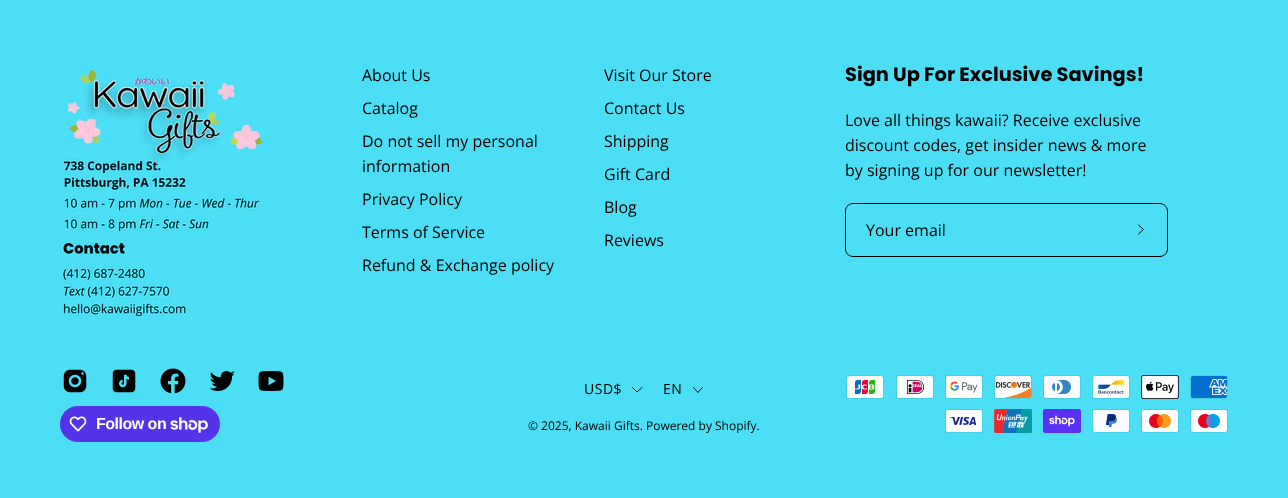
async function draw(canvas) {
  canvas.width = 1288;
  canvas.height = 498;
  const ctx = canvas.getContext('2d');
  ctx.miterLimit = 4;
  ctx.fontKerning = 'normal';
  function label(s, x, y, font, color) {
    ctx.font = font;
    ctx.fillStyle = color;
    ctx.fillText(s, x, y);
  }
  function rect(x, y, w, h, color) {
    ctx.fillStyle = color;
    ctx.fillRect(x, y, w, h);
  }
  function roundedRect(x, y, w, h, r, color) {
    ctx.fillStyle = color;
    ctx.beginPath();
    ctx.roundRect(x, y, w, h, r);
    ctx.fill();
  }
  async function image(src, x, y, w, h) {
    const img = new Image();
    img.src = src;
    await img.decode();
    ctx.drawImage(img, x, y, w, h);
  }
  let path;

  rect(0, 0, 1288, 498, '#4cdef5');
  await image('assets/img1.png', 60, 64, 208, 255);
  label('About Us', 362, 81, '16px Open Sans', '#000');
  label('Catalog', 362, 114, '16px Open Sans', '#000');
  label('Do not sell my personal', 362, 147, '16px Open Sans', '#000');
  label('information', 362, 172, '16px Open Sans', '#000');
  label('Privacy Policy', 362, 205, '16px Open Sans', '#000');
  label('Terms of Service', 362, 238, '16px Open Sans', '#000');
  label('Refund & Exchange policy', 362, 271, '16px Open Sans', '#000');
  label('Visit Our Store', 604, 81, '16px Open Sans', '#000');
  label('Contact Us', 604, 114, '16px Open Sans', '#000');
  label('Shipping', 604, 147, '16px Open Sans', '#000');
  label('Gift Card', 604, 180, '16px Open Sans', '#000');
  label('Blog', 604, 213, '16px Open Sans', '#000');
  label('Reviews', 604, 246, '16px Open Sans', '#000');
  label('Sign Up For Exclusive Savings!', 845, 81, 'bold 19.4px Poppins', '#000');
  label('Love all things kawaii? Receive exclusive', 845, 126, '16px Open Sans', '#000');
  label('discount codes, get insider news & more', 845, 151, '16px Open Sans', '#000');
  label('by signing up for our newsletter!', 845, 176, '16px Open Sans', '#000');
  path = new Path2D('M853 203H1114V257H853C849 257 845 253 845 249V211C845 207 849 203 853 203ZM853 204H1114V256H853C849 256 846 253 846 249V211C846 207 849 204 853 204Z');
  ctx.fill(path, 'evenodd');
  label('Your email', 866, 236, '16px Open Sans', '#000');
  path = new Path2D('M1114 203H1160C1164 203 1168 207 1168 211V249C1168 253 1164 257 1160 257H1114ZM1114 204H1160C1164 204 1167 207 1167 211V249C1167 253 1164 256 1160 256H1114Z');
  ctx.fill(path, 'evenodd');
  path = new Path2D('M1138.5 225L1143.5 229.5L1138.5 234');
  ctx.strokeStyle = '#000';
  ctx.lineWidth = 0.9;
  ctx.lineCap = 'round';
  ctx.lineJoin = 'round';
  ctx.stroke(path);
  await image('assets/img2.png', 63, 369, 24, 24);
  await image('assets/img3.png', 112, 369, 24, 24);
  await image('assets/img4.png', 160, 368, 26, 26);
  await image('assets/img5.png', 209, 371, 26, 20);
  await image('assets/img6.png', 258, 371, 26, 20);
  roundedRect(60, 406, 160, 36, 18, '#5433eb');
  await image('assets/img7.png', 69, 416, 18, 16);
  ctx.letterSpacing = '-0.5px';
  label('Follow on', 96, 429, 'bold 16px Liberation Sans', '#fff');
  await image('assets/img8.png', 170, 417, 38, 16);
  ctx.letterSpacing = '0.5px';
  label('USD$', 584, 394, '14px Open Sans', '#000');
  path = new Path2D('M642 387.5L637 392L632.5 387.5');
  ctx.stroke(path);
  label('EN', 663, 394, '14px Open Sans', '#000');
  path = new Path2D('M702.5 387.5L698 392.5L693.5 387.5');
  ctx.stroke(path);
  ctx.letterSpacing = '0px';
  label('© 2025, Kawaii Gifts. Powered by Shopify.', 528, 430, '12px Open Sans', '#000');
  await image('assets/img9.png', 846, 375, 38, 24);
  await image('assets/img10.png', 896, 375, 38, 24);
  await image('assets/img11.png', 945, 375, 38, 24);
  await image('assets/img12.png', 994, 375, 38, 24);
  await image('assets/img13.png', 1043, 375, 38, 24);
  await image('assets/img14.png', 1092, 375, 38, 24);
  await image('assets/img15.png', 1141, 375, 38, 24);
  await image('assets/img16.png', 1190, 375, 38, 24);
  await image('assets/img17.png', 945, 409, 38, 24);
  await image('assets/img18.png', 994, 409, 38, 24);
  await image('assets/img19.png', 1043, 409, 38, 24);
  await image('assets/img20.png', 1092, 409, 38, 24);
  await image('assets/img21.png', 1141, 409, 38, 24);
  await image('assets/img22.png', 1190, 409, 38, 24);
}

draw(document.querySelector('canvas'));
